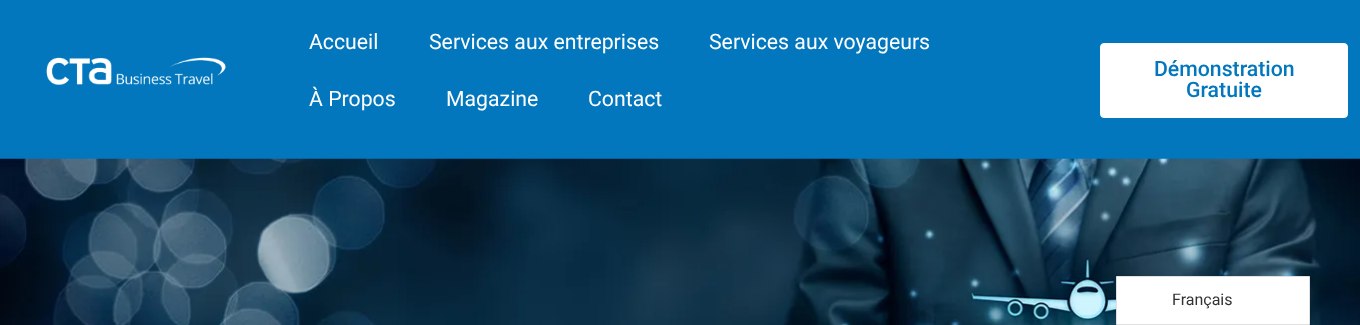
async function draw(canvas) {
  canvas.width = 1360;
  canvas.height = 325;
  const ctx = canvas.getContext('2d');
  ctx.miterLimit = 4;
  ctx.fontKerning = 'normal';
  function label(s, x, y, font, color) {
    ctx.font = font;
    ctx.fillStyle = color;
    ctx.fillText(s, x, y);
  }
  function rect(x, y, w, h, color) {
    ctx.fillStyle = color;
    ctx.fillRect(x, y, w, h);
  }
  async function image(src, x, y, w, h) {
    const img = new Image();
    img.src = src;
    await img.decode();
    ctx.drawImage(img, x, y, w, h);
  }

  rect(0, 0, 1360, 325, '#0277bd');
  await image('assets/img1.png', 46, 57, 180, 28);
  label('Accueil', 309, 49, '21.25px Roboto', '#fff');
  label('Services aux entreprises', 429, 49, '21.25px Roboto', '#fff');
  label('Services aux voyageurs', 709, 49, '21.25px Roboto', '#fff');
  label('À Propos', 309, 106, '21.25px Roboto', '#fff');
  label('Magazine', 446, 106, '21.25px Roboto', '#fff');
  label('Contact', 588, 106, '21.25px Roboto', '#fff');
  ctx.beginPath();
  ctx.roundRect(1100.5, 43.5, 247, 74, 3.5);
  ctx.fill();
  ctx.strokeStyle = '#fff';
  ctx.stroke();
  label('Démonstration', 1154, 76, '500 21.25px Roboto', '#0277bd');
  label('Gratuite', 1186, 97, '500 21.25px Roboto', '#0277bd');
  await image('assets/img2.png', 0, 158, 1360, 167);
  ctx.fillStyle = '#fff';
  ctx.beginPath();
  ctx.rect(1116.5, 276.5, 193, 48);
  ctx.fill();
  ctx.strokeStyle = '#e0e0e0';
  ctx.stroke();
  label('Français', 1172, 305, '16px Roboto', '#333');
}

draw(document.querySelector('canvas'));
